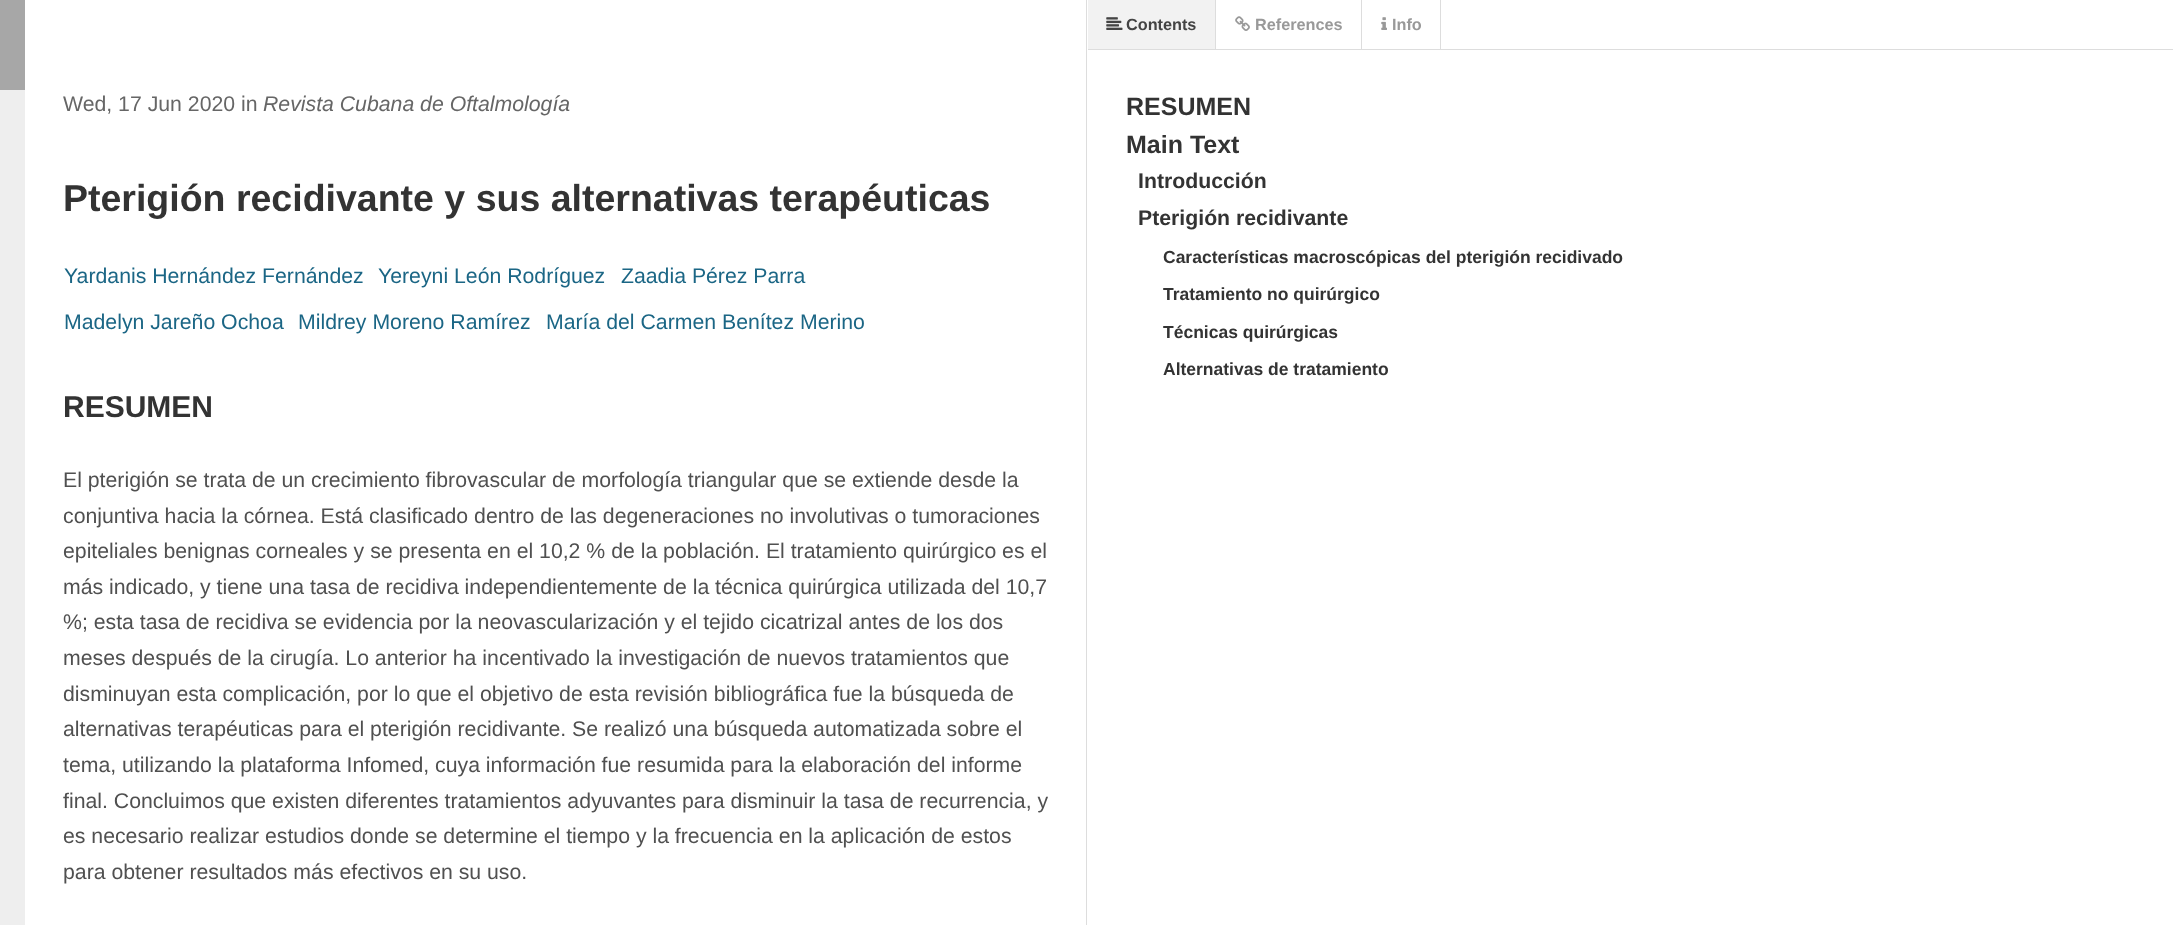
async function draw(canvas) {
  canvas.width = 2173;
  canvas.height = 925;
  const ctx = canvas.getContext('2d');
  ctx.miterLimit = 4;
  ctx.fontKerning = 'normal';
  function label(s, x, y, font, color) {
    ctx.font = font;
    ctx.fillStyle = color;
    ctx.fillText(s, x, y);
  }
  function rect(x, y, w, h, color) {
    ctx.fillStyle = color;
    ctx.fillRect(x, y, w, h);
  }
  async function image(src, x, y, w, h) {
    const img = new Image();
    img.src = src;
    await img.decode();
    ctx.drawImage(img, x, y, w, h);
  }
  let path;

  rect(0, 0, 2173, 925, '#fff');
  rect(1086, 0, 1, 925, '#ddd');
  rect(0, 90, 25, 835, '#eee');
  rect(0, 0, 25, 90, '#a7a7a7');
  label('Wed, 17 Jun 2020 in', 63, 111, '21.25px Liberation Sans', '#666');
  label('Revista Cubana de Oftalmología', 263, 111, 'italic 21.25px Liberation Sans', '#666');
  label('Pterigión recidivante y sus alternativas terapéuticas', 63, 211, 'bold 37.5px Liberation Sans', '#333');
  label('Yardanis Hernández Fernández', 64, 283, '21.25px Liberation Sans', '#1b6685');
  label('Yereyni León Rodríguez', 378, 283, '21.25px Liberation Sans', '#1b6685');
  label('Zaadia Pérez Parra', 621, 283, '21.25px Liberation Sans', '#1b6685');
  label('Madelyn Jareño Ochoa', 64, 329, '21.25px Liberation Sans', '#1b6685');
  label('Mildrey Moreno Ramírez', 298, 329, '21.25px Liberation Sans', '#1b6685');
  label('María del Carmen Benítez Merino', 546, 329, '21.25px Liberation Sans', '#1b6685');
  label('RESUMEN', 63, 417, 'bold 30px Liberation Sans', '#333');
  label('El pterigión se trata de un crecimiento fibrovascular de morfología triangular que se extiende desde la', 63, 487, '21.25px Liberation Sans', '#505050');
  label('conjuntiva hacia la córnea. Está clasificado dentro de las degeneraciones no involutivas o tumoraciones', 63, 523, '21.25px Liberation Sans', '#505050');
  label('epiteliales benignas corneales y se presenta en el 10,2 % de la población. El tratamiento quirúrgico es el', 63, 558, '21.25px Liberation Sans', '#505050');
  label('más indicado, y tiene una tasa de recidiva independientemente de la técnica quirúrgica utilizada del 10,7', 63, 594, '21.25px Liberation Sans', '#505050');
  label('%; esta tasa de recidiva se evidencia por la neovascularización y el tejido cicatrizal antes de los dos', 63, 629, '21.25px Liberation Sans', '#505050');
  label('meses después de la cirugía. Lo anterior ha incentivado la investigación de nuevos tratamientos que', 63, 665, '21.25px Liberation Sans', '#505050');
  label('disminuyan esta complicación, por lo que el objetivo de esta revisión bibliográfica fue la búsqueda de', 63, 701, '21.25px Liberation Sans', '#505050');
  label('alternativas terapéuticas para el pterigión recidivante. Se realizó una búsqueda automatizada sobre el', 63, 736, '21.25px Liberation Sans', '#505050');
  label('tema, utilizando la plataforma Infomed, cuya información fue resumida para la elaboración del informe', 63, 772, '21.25px Liberation Sans', '#505050');
  label('final. Concluimos que existen diferentes tratamientos adyuvantes para disminuir la tasa de recurrencia, y', 63, 808, '21.25px Liberation Sans', '#505050');
  label('es necesario realizar estudios donde se determine el tiempo y la frecuencia en la aplicación de estos', 63, 843, '21.25px Liberation Sans', '#505050');
  label('para obtener resultados más efectivos en su uso.', 63, 879, '21.25px Liberation Sans', '#505050');
  rect(1088, 49, 1085, 1, '#ddd');
  rect(1088, 0, 127, 49, '#f2f2f2');
  ctx.save();
  ctx.beginPath();
  ctx.rect(1088, 0, 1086, 49);
  ctx.clip();
  ctx.fillStyle = '#ddd';
  path = new Path2D('M1216 0V54L1215 50V0Z');
  ctx.fill(path);
  ctx.restore();
  await image('assets/img1.png', 1106, 17, 17, 13);
  label('Contents', 1126, 30, 'bold 16.25px Liberation Sans', '#444');
  rect(1361, 0, 1, 49, '#ddd');
  await image('assets/img2.png', 1235, 16, 15, 15);
  label('References', 1255, 30, 'bold 16.25px Liberation Sans', '#999');
  rect(1440, 0, 1, 49, '#ddd');
  await image('assets/img3.png', 1381, 17, 6, 13);
  label('Info', 1392, 30, 'bold 16.25px Liberation Sans', '#999');
  label('RESUMEN', 1126, 115, 'bold 25px Liberation Sans', '#333');
  label('Main Text', 1126, 153, 'bold 25px Liberation Sans', '#333');
  label('Introducción', 1138, 188, 'bold 21.25px Liberation Sans', '#333');
  label('Pterigión recidivante', 1138, 225, 'bold 21.25px Liberation Sans', '#333');
  label('Características macroscópicas del pterigión recidivado', 1163, 263, 'bold 17.5px Liberation Sans', '#333');
  label('Tratamiento no quirúrgico', 1163, 300, 'bold 17.5px Liberation Sans', '#333');
  label('Técnicas quirúrgicas', 1163, 338, 'bold 17.5px Liberation Sans', '#333');
  label('Alternativas de tratamiento', 1163, 375, 'bold 17.5px Liberation Sans', '#333');
}

draw(document.querySelector('canvas'));
